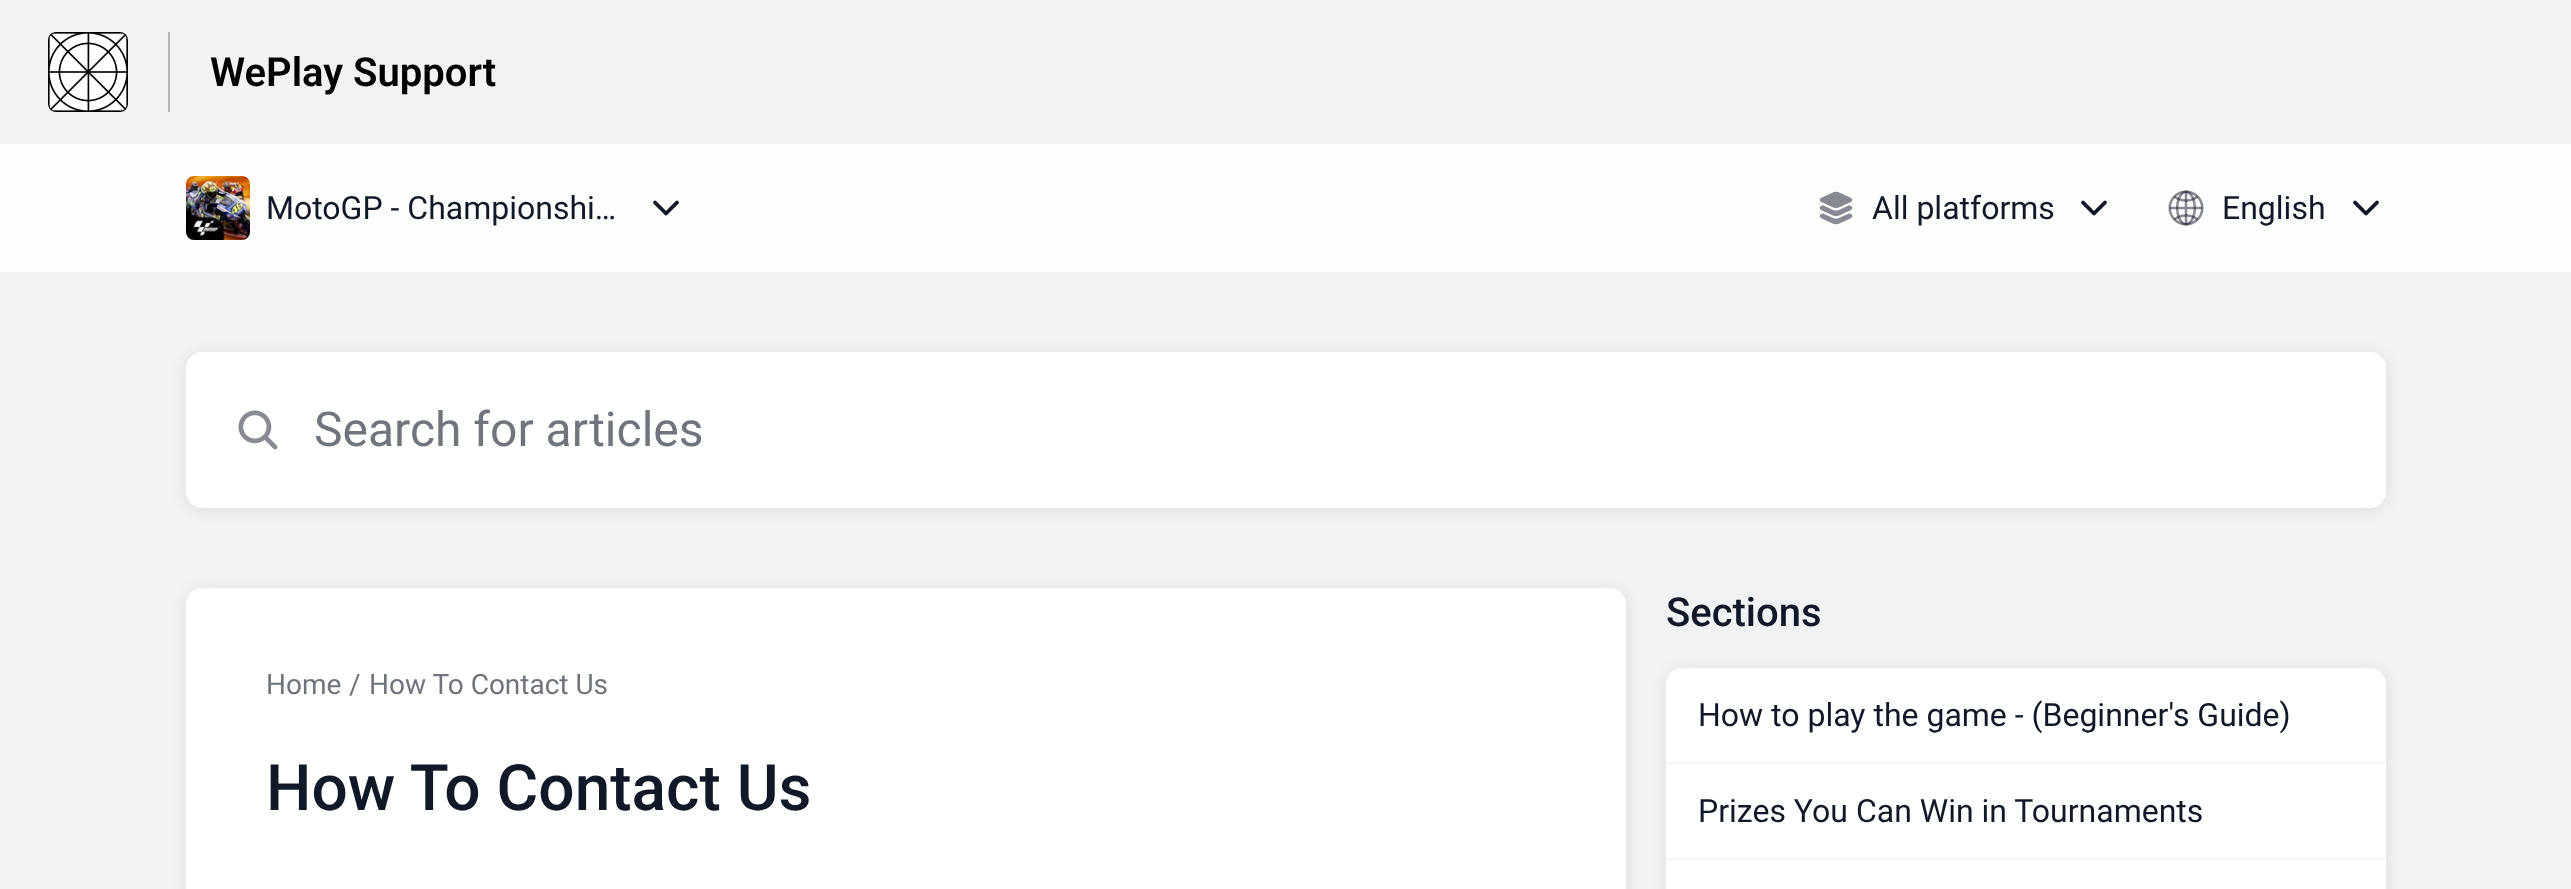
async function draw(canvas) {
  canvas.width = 2571;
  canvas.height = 889;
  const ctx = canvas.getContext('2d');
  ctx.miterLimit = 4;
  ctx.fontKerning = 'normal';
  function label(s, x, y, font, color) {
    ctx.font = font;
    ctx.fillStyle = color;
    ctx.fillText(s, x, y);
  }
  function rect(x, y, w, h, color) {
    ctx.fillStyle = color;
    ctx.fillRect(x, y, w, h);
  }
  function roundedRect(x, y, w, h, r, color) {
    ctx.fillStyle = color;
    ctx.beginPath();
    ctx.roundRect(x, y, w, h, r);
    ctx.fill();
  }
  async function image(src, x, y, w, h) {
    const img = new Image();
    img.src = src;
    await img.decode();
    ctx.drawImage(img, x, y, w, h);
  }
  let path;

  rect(0, 0, 2571, 889, '#fdfdfd');
  rect(0, 0, 2571, 144, '#f0f2f4');
  rect(168, 32, 2, 80, '#b4b6b7');
  await image('assets/img1.png', 48, 32, 80, 80);
  label('WePlay Support', 210, 86, '600 40px Roboto', '#000');
  await image('assets/img2.png', 186, 176, 64, 64);
  label('MotoGP - Championshi…', 266, 219, '32px Roboto', '#111827');
  path = new Path2D('M655 202.5L666 213.5L677 202.5');
  ctx.strokeStyle = '#111827';
  ctx.lineWidth = 3.8;
  ctx.lineCap = 'round';
  ctx.lineJoin = 'round';
  ctx.stroke(path);
  await image('assets/img3.png', 1819, 191, 34, 34);
  label('All platforms', 1872, 219, '32px Roboto', '#111827');
  path = new Path2D('M2083 202.5L2094 213.5L2105 202.5');
  ctx.stroke(path);
  await image('assets/img4.png', 2168, 190, 36, 36);
  label('English', 2222, 219, '32px Roboto', '#111827');
  path = new Path2D('M2355 202.5L2366 213.5L2377 202.5');
  ctx.stroke(path);
  rect(0, 272, 2571, 617, '#f0f2f4');
  ctx.fillStyle = '#00000014';
  ctx.filter = 'blur(8px)';
  ctx.beginPath();
  ctx.roundRect(186, 354, 2200, 156, 16);
  ctx.fill();
  ctx.filter = 'none';
  roundedRect(186, 352, 2200, 156, 16, '#fff');
  await image('assets/img5.png', 238, 410, 40, 40);
  label('Search for articles', 314, 446, '48px Roboto', '#70747d');
  ctx.fillStyle = '#00000014';
  ctx.filter = 'blur(8px)';
  ctx.beginPath();
  ctx.roundRect(186, 590, 1440, 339, 16);
  ctx.fill();
  ctx.filter = 'none';
  ctx.fillStyle = '#fff';
  path = new Path2D('M202 588H1610C1619 588 1626 595 1626 604V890H186V604C186 595 193 588 202 588Z');
  ctx.fill(path);
  label('Home', 266, 694, '28px Roboto', '#70747d');
  label('/', 349, 694, '28px Roboto', '#70747d');
  label('How To Contact Us', 369, 694, '28px Roboto', '#70747d');
  label('How To Contact Us', 266, 810, '500 64px Roboto', '#111827');
  label('Sections', 1666, 626, '500 40px Roboto', '#111827');
  ctx.fillStyle = '#00000014';
  ctx.filter = 'blur(8px)';
  ctx.beginPath();
  ctx.roundRect(1666, 670, 720, 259, 16);
  ctx.fill();
  ctx.filter = 'none';
  ctx.fillStyle = '#fff';
  path = new Path2D('M1682 668H2370C2379 668 2386 675 2386 684V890H1666V684C1666 675 1673 668 1682 668Z');
  ctx.fill(path);
  rect(1666, 762, 720, 2, '#f3f3f4');
  label('How to play the game - (Beginner\'s Guide)', 1698, 726, '32px Roboto', '#111827');
  rect(1666, 858, 720, 2, '#f3f3f4');
  label('Prizes You Can Win in Tournaments', 1698, 822, '32px Roboto', '#111827');
}

draw(document.querySelector('canvas'));
